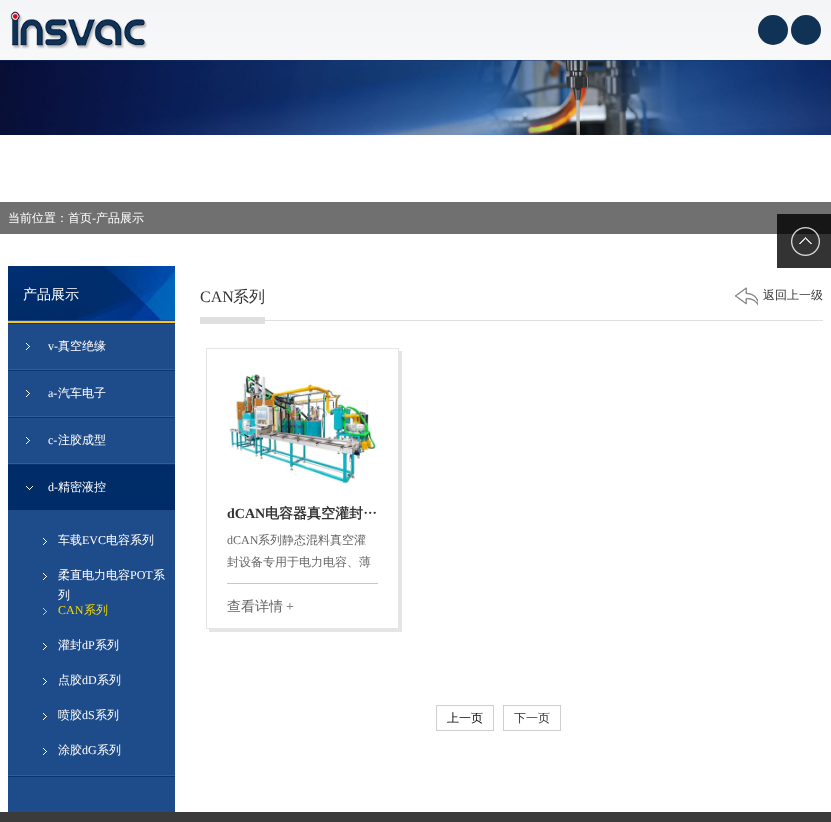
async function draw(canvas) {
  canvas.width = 831;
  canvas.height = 822;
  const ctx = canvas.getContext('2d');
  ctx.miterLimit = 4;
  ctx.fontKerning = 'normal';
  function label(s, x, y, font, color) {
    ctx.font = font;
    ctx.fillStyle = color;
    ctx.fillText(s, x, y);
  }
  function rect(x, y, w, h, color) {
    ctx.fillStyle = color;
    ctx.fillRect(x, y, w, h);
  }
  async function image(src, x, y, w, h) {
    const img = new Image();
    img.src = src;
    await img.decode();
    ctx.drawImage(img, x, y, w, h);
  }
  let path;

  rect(0, 0, 831, 822, '#fff');
  rect(777, 234, 54, 34, '#333');
  await image('assets/img1.png', 0, 0, 831, 60);
  await image('assets/img2.png', 10, 11, 137, 38);
  ctx.fillStyle = '#103255';
  ctx.beginPath();
  ctx.arc(773, 30, 15, 0, 2 * Math.PI);
  ctx.fill();
  ctx.beginPath();
  ctx.arc(806, 30, 15, 0, 2 * Math.PI);
  ctx.fill();
  await image('assets/img3.png', 0, 60, 831, 75);
  rect(0, 202, 831, 32, '#707070');
  rect(777, 214, 54, 20, '#161616');
  label('当前位置：首页', 8, 222, '500 12px WenQuanYi Zen Hei', '#fff');
  label('-', 92, 222, '12px Liberation Serif', '#fff');
  label('产品展示', 96, 222, '500 12px WenQuanYi Zen Hei', '#fff');
  await image('assets/img4.png', 791, 227, 29, 29);
  rect(8, 320, 167, 492, '#1e4b89');
  await image('assets/img5.png', 8, 266, 167, 54);
  rect(8, 321, 167, 2, '#f8c71b');
  label('产品展示', 23, 299, '500 14px WenQuanYi Zen Hei', '#fff');
  rect(8, 776, 167, 1, '#093572');
  rect(8, 323, 167, 1, '#093572');
  rect(8, 369, 167, 1, '#2e5ea0');
  await image('assets/img6.png', 26, 343, 4, 7);
  label('v-', 48, 350, '12px Liberation Serif', '#fff');
  label('真空绝缘', 58, 350, '500 12px WenQuanYi Zen Hei', '#fff');
  rect(8, 370, 167, 1, '#093572');
  rect(8, 416, 167, 1, '#2e5ea0');
  await image('assets/img6.png', 26, 390, 4, 7);
  label('a-', 48, 397, '12px Liberation Serif', '#fff');
  label('汽车电子', 58, 397, '500 12px WenQuanYi Zen Hei', '#fff');
  rect(8, 417, 167, 1, '#093572');
  rect(8, 463, 167, 1, '#2e5ea0');
  await image('assets/img6.png', 26, 437, 4, 7);
  label('c-', 48, 444, '12px Liberation Serif', '#fff');
  label('注胶成型', 58, 444, '500 12px WenQuanYi Zen Hei', '#fff');
  rect(8, 464, 167, 1, '#093572');
  rect(8, 775, 167, 1, '#2e5ea0');
  rect(8, 465, 167, 45, '#002c68');
  await image('assets/img7.png', 26, 486, 7, 4);
  label('d-', 48, 491, '12px Liberation Serif', '#fff');
  label('精密液控', 58, 491, '500 12px WenQuanYi Zen Hei', '#fff');
  await image('assets/img6.png', 43, 538, 4, 7);
  label('车载', 58, 544, '500 12px WenQuanYi Zen Hei', '#fff');
  label('EVC', 82, 544, '12px Liberation Serif', '#fff');
  label('电容系列', 106, 544, '500 12px WenQuanYi Zen Hei', '#fff');
  await image('assets/img6.png', 43, 573, 4, 7);
  label('柔直电力电容', 58, 579, '500 12px WenQuanYi Zen Hei', '#fff');
  label('POT', 130, 579, '12px Liberation Serif', '#fff');
  label('系', 153, 579, '500 12px WenQuanYi Zen Hei', '#fff');
  label('列', 58, 599, '500 12px WenQuanYi Zen Hei', '#fff');
  await image('assets/img8.png', 43, 608, 4, 7);
  label('CAN', 58, 614, '12px Liberation Serif', '#efd808');
  label('系列', 84, 614, '500 12px WenQuanYi Zen Hei', '#efd808');
  await image('assets/img6.png', 43, 643, 4, 7);
  label('灌封', 58, 649, '500 12px WenQuanYi Zen Hei', '#fff');
  label('dP', 82, 649, '12px Liberation Serif', '#fff');
  label('系列', 95, 649, '500 12px WenQuanYi Zen Hei', '#fff');
  await image('assets/img6.png', 43, 678, 4, 7);
  label('点胶', 58, 684, '500 12px WenQuanYi Zen Hei', '#fff');
  label('dD', 82, 684, '12px Liberation Serif', '#fff');
  label('系列', 97, 684, '500 12px WenQuanYi Zen Hei', '#fff');
  await image('assets/img6.png', 43, 713, 4, 7);
  label('喷胶', 58, 719, '500 12px WenQuanYi Zen Hei', '#fff');
  label('dS', 82, 719, '12px Liberation Serif', '#fff');
  label('系列', 95, 719, '500 12px WenQuanYi Zen Hei', '#fff');
  await image('assets/img6.png', 43, 748, 4, 7);
  label('涂胶', 58, 754, '500 12px WenQuanYi Zen Hei', '#fff');
  label('dG', 82, 754, '12px Liberation Serif', '#fff');
  label('系列', 97, 754, '500 12px WenQuanYi Zen Hei', '#fff');
  rect(265, 320, 558, 1, '#dfdfdf');
  rect(200, 317, 65, 7, '#dfdfdf');
  label('CAN', 200, 302, '16px Liberation Serif', '#333');
  label('系列', 233, 302, '500 16px WenQuanYi Zen Hei', '#333');
  await image('assets/img9.png', 735, 287, 23, 19);
  label('返回上一级', 763, 299, '500 12px WenQuanYi Zen Hei', '#333');
  ctx.fillStyle = '#e5e5e5';
  path = new Path2D('M209 629V632H402V351H399V629Z');
  ctx.fill(path);
  ctx.strokeStyle = '#e5e5e5';
  ctx.strokeRect(206.5, 348.5, 192, 280);
  await image('assets/img10.png', 229, 374, 147, 109);
  label('dCAN', 227, 518, 'bold 14px Liberation Serif', '#333');
  label('电容器真空灌封…', 265, 518, 'bold 14px WenQuanYi Zen Hei', '#333');
  label('dCAN', 227, 544, '12px Liberation Serif', '#666');
  label('系列静态混料真空灌', 258, 544, '500 12px WenQuanYi Zen Hei', '#666');
  label('封设备专用于电力电容、薄', 227, 566, '500 12px WenQuanYi Zen Hei', '#666');
  rect(227, 583, 151, 1, '#c7c7c7');
  label('查看详情', 227, 611, '500 14px WenQuanYi Zen Hei', '#666');
  label('+', 286, 611, '14px Liberation Serif', '#666');
  ctx.strokeStyle = '#cfcfcf';
  ctx.strokeRect(436.5, 705.5, 57, 25);
  label('上一页', 447, 722, '500 12px WenQuanYi Zen Hei', '#000');
  ctx.strokeRect(503.5, 705.5, 57, 25);
  label('下一页', 514, 722, '500 12px WenQuanYi Zen Hei', '#333');
  rect(0, 812, 831, 10, '#3b3b3b');
}

draw(document.querySelector('canvas'));
